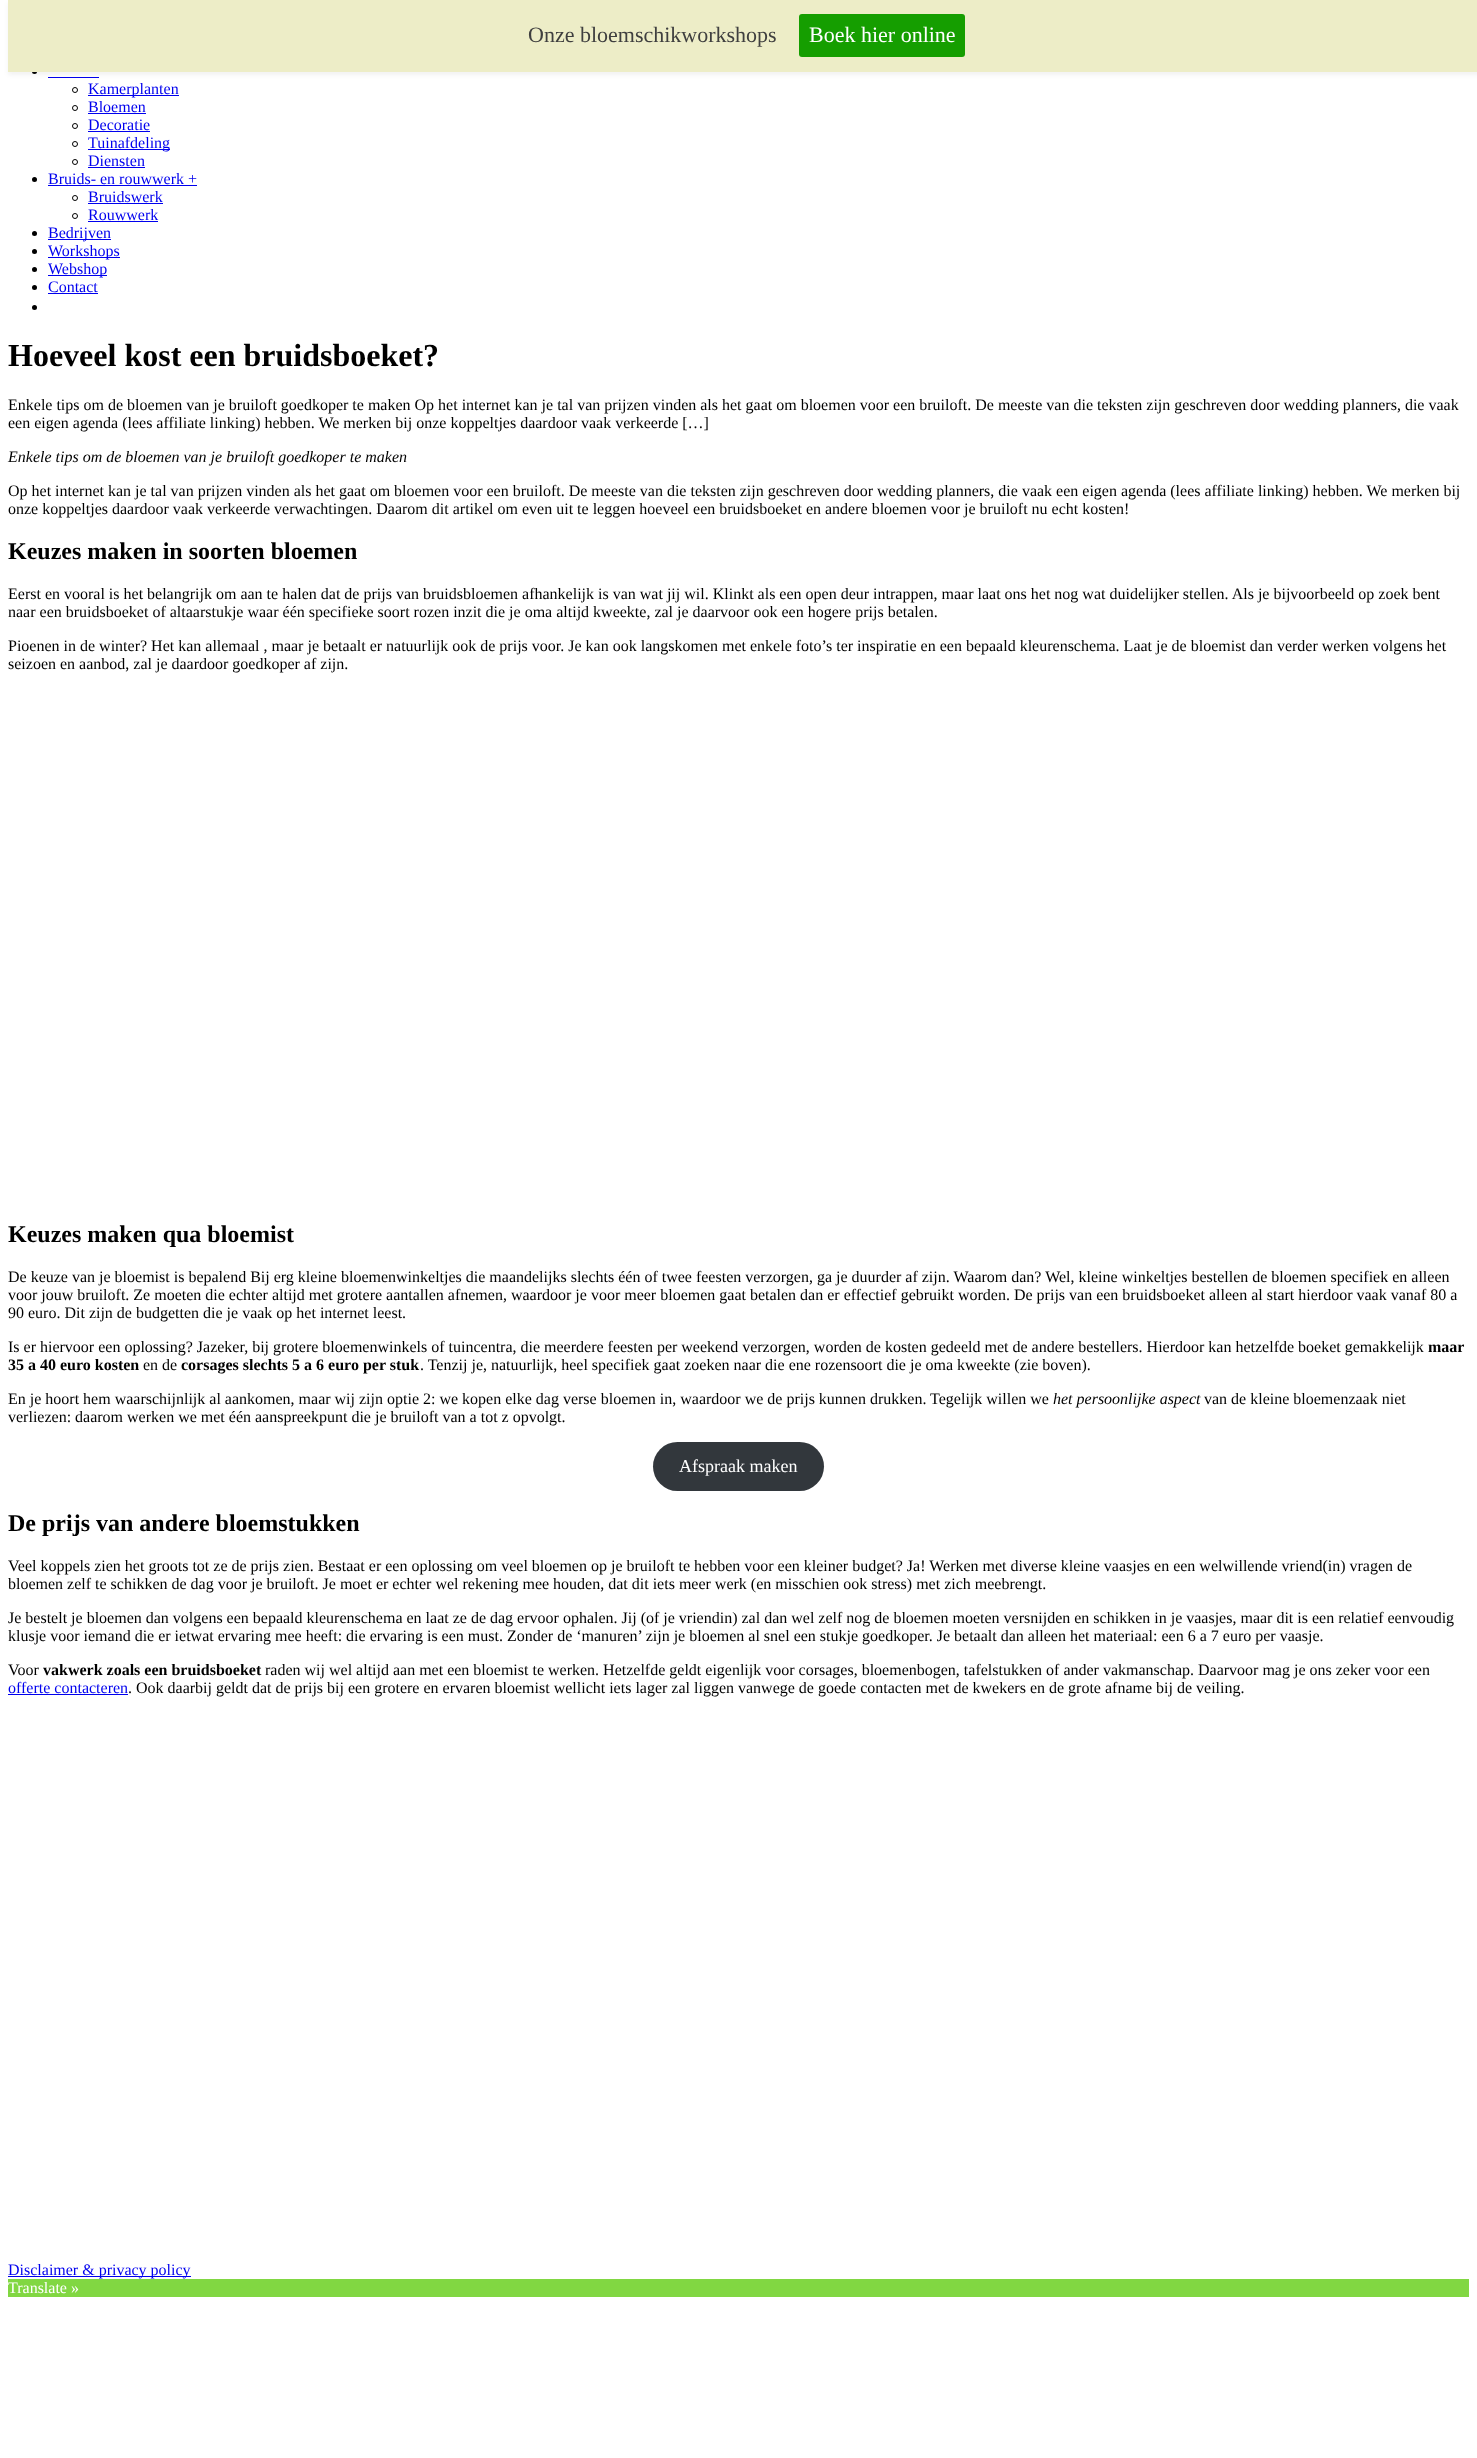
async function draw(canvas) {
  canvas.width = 1477;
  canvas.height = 2458;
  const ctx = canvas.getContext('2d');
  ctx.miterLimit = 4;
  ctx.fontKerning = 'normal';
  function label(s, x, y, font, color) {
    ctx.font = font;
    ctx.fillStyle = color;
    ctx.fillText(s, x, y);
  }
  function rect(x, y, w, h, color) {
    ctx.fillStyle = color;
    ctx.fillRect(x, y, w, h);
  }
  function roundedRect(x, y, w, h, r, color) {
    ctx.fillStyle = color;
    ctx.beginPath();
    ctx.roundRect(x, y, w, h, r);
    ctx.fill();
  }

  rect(0, 0, 1477, 2458, '#fff');
  ctx.fillStyle = '#000';
  ctx.beginPath();
  ctx.arc(34.5, 71.5, 2.5, 0, 2 * Math.PI);
  ctx.fill();
  rect(48, 77, 51, 1, '#00e');
  ctx.fillStyle = '#0000000d';
  ctx.filter = 'blur(2px)';
  ctx.beginPath();
  ctx.rect(8, 3, 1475, 72);
  ctx.fill();
  ctx.filter = 'none';
  rect(8, 0, 1469, 72, '#ededc7');
  label('Onze bloemschikworkshops', 528, 42, '22px Liberation Serif', '#3f3f3f');
  roundedRect(799, 14, 166, 43, 3, '#159e00');
  label('Boek hier online', 809, 42, '22px Liberation Serif', '#fff');
  ctx.beginPath();
  ctx.arc(75, 90, 2.5, 0, 2 * Math.PI);
  ctx.strokeStyle = '#000';
  ctx.stroke();
  rect(88, 95, 91, 1, '#00e');
  label('Kamerplanten', 88, 94, '16px Liberation Serif', '#00e');
  ctx.beginPath();
  ctx.arc(75, 108, 2.5, 0, 2 * Math.PI);
  ctx.stroke();
  label('Bloemen', 88, 112, '16px Liberation Serif', '#00e');
  rect(88, 113, 58, 1, '#00e');
  ctx.beginPath();
  ctx.arc(75, 126, 2.5, 0, 2 * Math.PI);
  ctx.stroke();
  label('Decoratie', 88, 130, '16px Liberation Serif', '#00e');
  rect(88, 131, 62, 1, '#00e');
  ctx.beginPath();
  ctx.arc(75, 144, 2.5, 0, 2 * Math.PI);
  ctx.stroke();
  rect(88, 149, 82, 1, '#00e');
  label('Tuinafdeling', 88, 148, '16px Liberation Serif', '#00e');
  ctx.beginPath();
  ctx.arc(75, 162, 2.5, 0, 2 * Math.PI);
  ctx.stroke();
  label('Diensten', 88, 166, '16px Liberation Serif', '#00e');
  rect(88, 167, 57, 1, '#00e');
  ctx.fillStyle = '#000';
  ctx.beginPath();
  ctx.arc(34.5, 179.5, 2.5, 0, 2 * Math.PI);
  ctx.fill();
  label('Bruids- en rouwwerk +', 48, 184, '16px Liberation Serif', '#00e');
  rect(48, 185, 149, 1, '#00e');
  ctx.beginPath();
  ctx.arc(75, 198, 2.5, 0, 2 * Math.PI);
  ctx.stroke();
  label('Bruidswerk', 88, 202, '16px Liberation Serif', '#00e');
  rect(88, 203, 75, 1, '#00e');
  ctx.beginPath();
  ctx.arc(75, 216, 2.5, 0, 2 * Math.PI);
  ctx.stroke();
  label('Rouwwerk', 88, 220, '16px Liberation Serif', '#00e');
  rect(88, 221, 70, 1, '#00e');
  ctx.fillStyle = '#000';
  ctx.beginPath();
  ctx.arc(34.5, 233.5, 2.5, 0, 2 * Math.PI);
  ctx.fill();
  rect(48, 239, 63, 1, '#00e');
  label('Bedrijven', 48, 238, '16px Liberation Serif', '#00e');
  ctx.fillStyle = '#000';
  ctx.beginPath();
  ctx.arc(34.5, 251.5, 2.5, 0, 2 * Math.PI);
  ctx.fill();
  rect(48, 257, 72, 1, '#00e');
  label('Workshops', 48, 256, '16px Liberation Serif', '#00e');
  ctx.fillStyle = '#000';
  ctx.beginPath();
  ctx.arc(34.5, 269.5, 2.5, 0, 2 * Math.PI);
  ctx.fill();
  rect(48, 275, 59, 1, '#00e');
  label('Webshop', 48, 274, '16px Liberation Serif', '#00e');
  ctx.fillStyle = '#000';
  ctx.beginPath();
  ctx.arc(34.5, 287.5, 2.5, 0, 2 * Math.PI);
  ctx.fill();
  label('Contact', 48, 292, '16px Liberation Serif', '#00e');
  rect(48, 293, 50, 1, '#00e');
  ctx.fillStyle = '#000';
  ctx.beginPath();
  ctx.arc(34.5, 307.5, 2.5, 0, 2 * Math.PI);
  ctx.fill();
  label('Hoeveel kost een bruidsboeket?', 8, 366, 'bold 32px Liberation Serif', '#000');
  label('Enkele tips om de bloemen van je bruiloft goedkoper te maken Op het internet kan je tal van prijzen vinden als het gaat om bloemen voor een bruiloft. De meeste van die teksten zijn geschreven door wedding planners, die vaak', 8, 410, '16px Liberation Serif', '#000');
  label('een eigen agenda (lees affiliate linking) hebben. We merken bij onze koppeltjes daardoor vaak verkeerde […]', 8, 428, '16px Liberation Serif', '#000');
  label('Enkele tips om de bloemen van je bruiloft goedkoper te maken', 8, 462, 'italic 16px Liberation Serif', '#000');
  label('Op het internet kan je tal van prijzen vinden als het gaat om bloemen voor een bruiloft. De meeste van die teksten zijn geschreven door wedding planners, die vaak een eigen agenda (lees affiliate linking) hebben. We merken bij', 8, 496, '16px Liberation Serif', '#000');
  label('onze koppeltjes daardoor vaak verkeerde verwachtingen. Daarom dit artikel om even uit te leggen hoeveel een bruidsboeket en andere bloemen voor je bruiloft nu echt kosten!', 8, 514, '16px Liberation Serif', '#000');
  label('Keuzes maken in soorten bloemen', 8, 559, 'bold 24px Liberation Serif', '#000');
  label('Eerst en vooral is het belangrijk om aan te halen dat de prijs van bruidsbloemen afhankelijk is van wat jij wil. Klinkt als een open deur intrappen, maar laat ons het nog wat duidelijker stellen. Als je bijvoorbeeld op zoek bent', 8, 599, '16px Liberation Serif', '#000');
  label('naar een bruidsboeket of altaarstukje waar één specifieke soort rozen inzit die je oma altijd kweekte, zal je daarvoor ook een hogere prijs betalen.', 8, 617, '16px Liberation Serif', '#000');
  label('Pioenen in de winter? Het kan allemaal , maar je betaalt er natuurlijk ook de prijs voor. Je kan ook langskomen met enkele foto’s ter inspiratie en een bepaald kleurenschema. Laat je de bloemist dan verder werken volgens het', 8, 651, '16px Liberation Serif', '#000');
  label('seizoen en aanbod, zal je daardoor goedkoper af zijn.', 8, 669, '16px Liberation Serif', '#000');
  label('Keuzes maken qua bloemist', 8, 1242, 'bold 24px Liberation Serif', '#000');
  label('De keuze van je bloemist is bepalend Bij erg kleine bloemenwinkeltjes die maandelijks slechts één of twee feesten verzorgen, ga je duurder af zijn. Waarom dan? Wel, kleine winkeltjes bestellen de bloemen specifiek en alleen', 8, 1282, '16px Liberation Serif', '#000');
  label('voor jouw bruiloft. Ze moeten die echter altijd met grotere aantallen afnemen, waardoor je voor meer bloemen gaat betalen dan er effectief gebruikt worden. De prijs van een bruidsboeket alleen al start hierdoor vaak vanaf 80 a', 8, 1300, '16px Liberation Serif', '#000');
  label('90 euro. Dit zijn de budgetten die je vaak op het internet leest.', 8, 1318, '16px Liberation Serif', '#000');
  label('Is er hiervoor een oplossing? Jazeker, bij grotere bloemenwinkels of tuincentra, die meerdere feesten per weekend verzorgen, worden de kosten gedeeld met de andere bestellers. Hierdoor kan hetzelfde boeket gemakkelijk', 8, 1352, '16px Liberation Serif', '#000');
  label('maar', 1428, 1352, 'bold 16px Liberation Serif', '#000');
  label('35 a 40 euro kosten', 8, 1370, 'bold 16px Liberation Serif', '#000');
  label('en de', 143, 1370, '16px Liberation Serif', '#000');
  label('corsages slechts 5 a 6 euro per stuk', 181, 1370, 'bold 16px Liberation Serif', '#000');
  label('. Tenzij je, natuurlijk, heel specifiek gaat zoeken naar die ene rozensoort die je oma kweekte (zie boven).', 420, 1370, '16px Liberation Serif', '#000');
  label('En je hoort hem waarschijnlijk al aankomen, maar wij zijn optie 2: we kopen elke dag verse bloemen in, waardoor we de prijs kunnen drukken. Tegelijk willen we', 8, 1404, '16px Liberation Serif', '#000');
  label('het persoonlijke aspect', 1053, 1404, 'italic 16px Liberation Serif', '#000');
  label('van de kleine bloemenzaak niet', 1204, 1404, '16px Liberation Serif', '#000');
  label('verliezen: daarom werken we met één aanspreekpunt die je bruiloft van a tot z opvolgt.', 8, 1422, '16px Liberation Serif', '#000');
  roundedRect(653, 1442, 171, 49, 24.5, '#32373c');
  label('Afspraak maken', 679, 1472, '18px Liberation Serif', '#fff');
  label('De prijs van andere bloemstukken', 8, 1531, 'bold 24px Liberation Serif', '#000');
  label('Veel koppels zien het groots tot ze de prijs zien. Bestaat er een oplossing om veel bloemen op je bruiloft te hebben voor een kleiner budget? Ja! Werken met diverse kleine vaasjes en een welwillende vriend(in) vragen de', 8, 1571, '16px Liberation Serif', '#000');
  label('bloemen zelf te schikken de dag voor je bruiloft. Je moet er echter wel rekening mee houden, dat dit iets meer werk (en misschien ook stress) met zich meebrengt.', 8, 1589, '16px Liberation Serif', '#000');
  label('Je bestelt je bloemen dan volgens een bepaald kleurenschema en laat ze de dag ervoor ophalen. Jij (of je vriendin) zal dan wel zelf nog de bloemen moeten versnijden en schikken in je vaasjes, maar dit is een relatief eenvoudig', 8, 1623, '16px Liberation Serif', '#000');
  label('klusje voor iemand die er ietwat ervaring mee heeft: die ervaring is een must. Zonder de ‘manuren’ zijn je bloemen al snel een stukje goedkoper. Je betaalt dan alleen het materiaal: een 6 a 7 euro per vaasje.', 8, 1641, '16px Liberation Serif', '#000');
  label('Voor', 8, 1675, '16px Liberation Serif', '#000');
  label('vakwerk zoals een bruidsboeket', 43, 1675, 'bold 16px Liberation Serif', '#000');
  label('raden wij wel altijd aan met een bloemist te werken. Hetzelfde geldt eigenlijk voor corsages, bloemenbogen, tafelstukken of ander vakmanschap. Daarvoor mag je ons zeker voor een', 265, 1675, '16px Liberation Serif', '#000');
  label('offerte contacteren', 8, 1693, '16px Liberation Serif', '#00e');
  rect(8, 1694, 120, 1, '#00e');
  label('. Ook daarbij geldt dat de prijs bij een grotere en ervaren bloemist wellicht iets lager zal liggen vanwege de goede contacten met de kwekers en de grote afname bij de veiling.', 128, 1693, '16px Liberation Serif', '#000');
  rect(8, 2276, 183, 1, '#00e');
  label('Disclaimer & privacy policy', 8, 2275, '16px Liberation Serif', '#00e');
  rect(8, 2279, 1461, 18, '#81d742');
  label('Translate »', 8, 2293, '16px Liberation Serif', '#fff');
}

draw(document.querySelector('canvas'));
